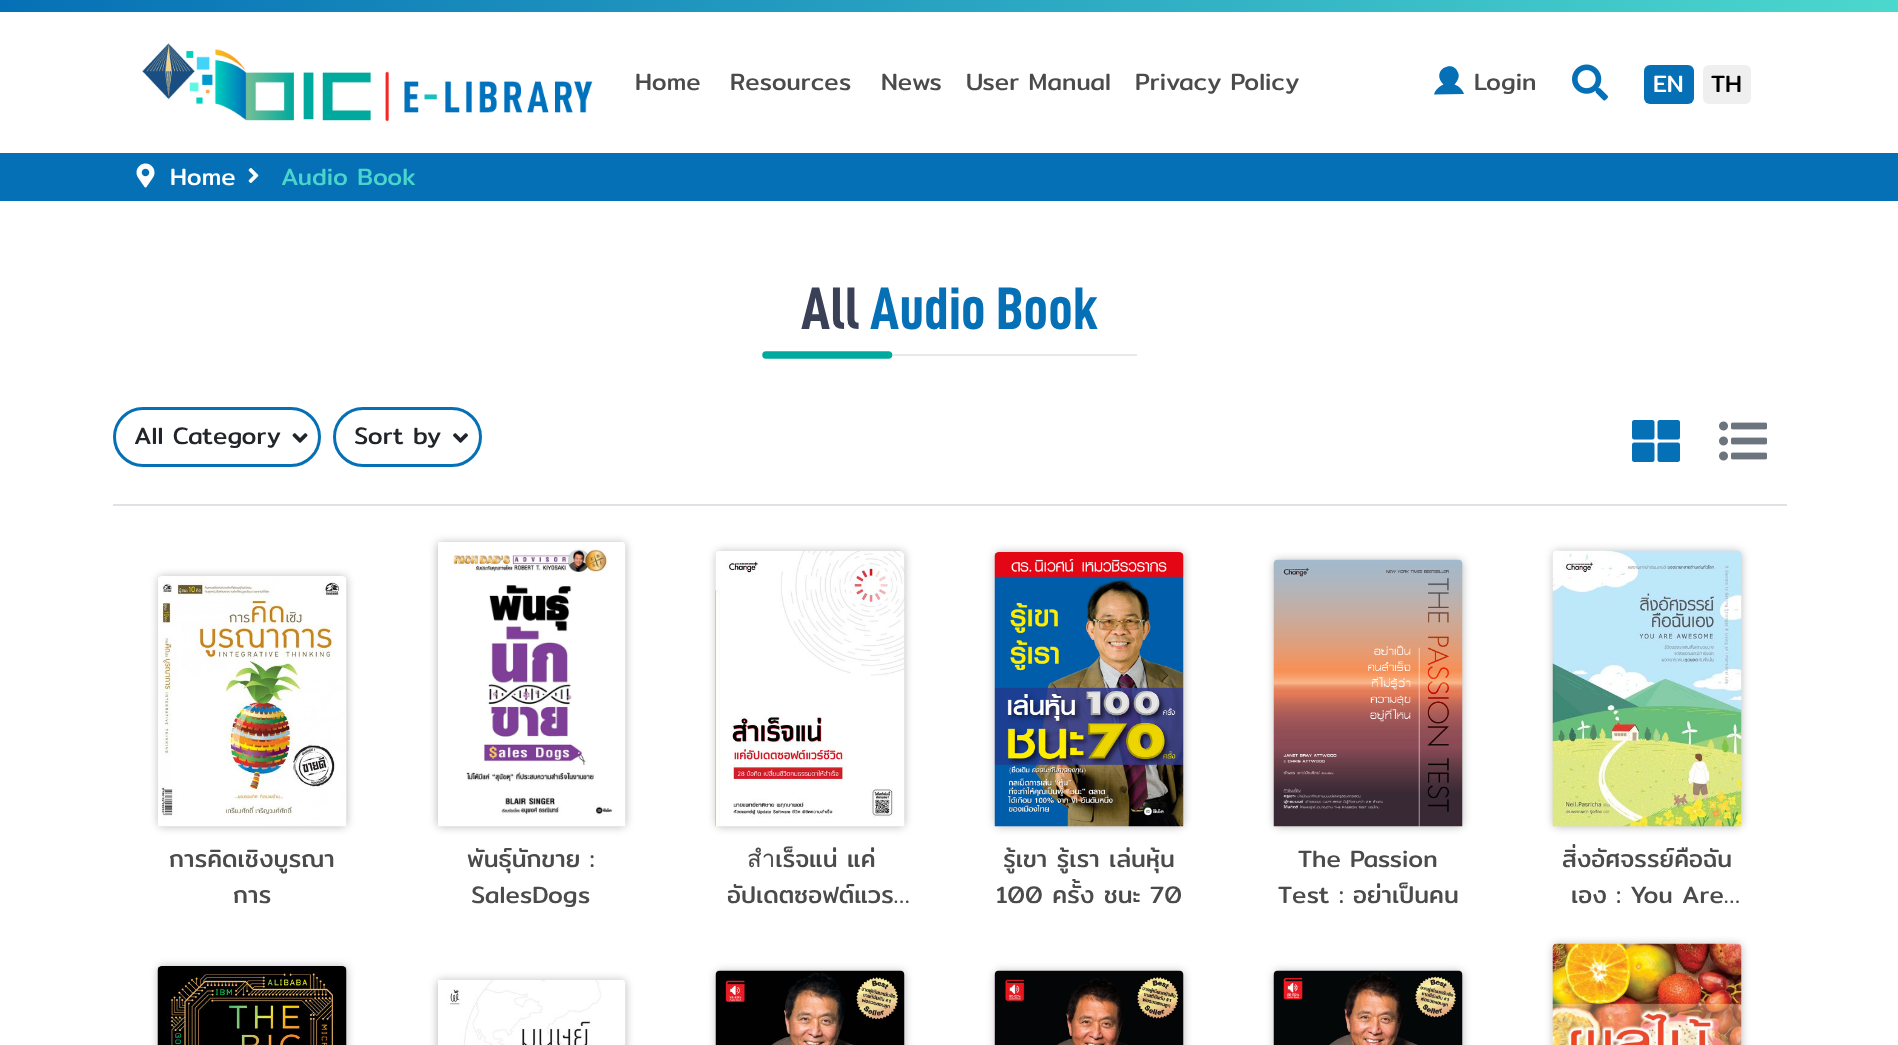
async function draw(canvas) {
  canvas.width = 1898;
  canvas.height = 1045;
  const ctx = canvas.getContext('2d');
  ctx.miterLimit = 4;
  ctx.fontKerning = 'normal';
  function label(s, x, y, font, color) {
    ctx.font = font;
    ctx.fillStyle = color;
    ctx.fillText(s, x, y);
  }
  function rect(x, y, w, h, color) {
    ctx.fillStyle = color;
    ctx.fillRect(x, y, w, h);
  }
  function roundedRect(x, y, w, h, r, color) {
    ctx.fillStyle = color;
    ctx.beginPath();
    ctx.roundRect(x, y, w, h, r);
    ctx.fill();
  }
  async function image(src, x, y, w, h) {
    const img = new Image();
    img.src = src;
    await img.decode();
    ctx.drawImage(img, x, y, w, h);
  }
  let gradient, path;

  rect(0, 0, 1898, 1045, '#fff');
  gradient = ctx.createLinearGradient(0, 6, 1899, 6);
  gradient.addColorStop(0, '#0670b6');
  gradient.addColorStop(1, '#4bd8cd');
  ctx.fillStyle = gradient;
  ctx.fillRect(0, 0, 1898, 12);
  await image('assets/img1.png', 142, 43, 451, 79);
  label('Home', 635, 90, '24px Mitr', '#4b4b4b');
  label('Resources', 730, 90, '24px Mitr', '#4b4b4b');
  label('News', 881, 90, '24px Mitr', '#4b4b4b');
  label('User Manual', 966, 90, '24px Mitr', '#4b4b4b');
  label('Privacy Policy', 1135, 90, '24px Mitr', '#4b4b4b');
  ctx.fillStyle = '#0670b6';
  path = new Path2D('M1464 94C1462.5 89.5 1459 86 1454.5 84.5C1457.5 81 1460 76.5 1458 72.5C1452.5 58.5 1430 71 1443.5 84.5C1439 86.5 1435.5 89.5 1434 94.5Z');
  ctx.fill(path);
  label('Login', 1474, 90, '24px Mitr', '#4b4b4b');
  await image('assets/img2.png', 1572, 64, 36, 37);
  roundedRect(1644, 65, 50, 39, 6, '#0670b6');
  label('EN', 1653, 92, '24px Mitr', '#fff');
  roundedRect(1703, 65, 48, 39, 6, '#efefef');
  label('TH', 1711, 92, '24px Mitr', '#000');
  rect(0, 153, 1898, 48, '#0670b6');
  await image('assets/img3.png', 136, 163, 19, 25);
  label('Home', 170, 185, '24px Mitr', '#fff');
  await image('assets/img4.png', 248, 168, 11, 15);
  label('Audio Book', 281, 185, '24px Mitr', '#49d5cc');
  label('All', 801, 329, 'bold 60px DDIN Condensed', '#3a4056');
  label('Audio Book', 870, 329, 'bold 60px DDIN Condensed', '#0670b6');
  ctx.save();
  ctx.beginPath();
  ctx.rect(762, 351, 375, 8);
  ctx.clip();
  path = new Path2D('M888.5 355H1145.5');
  ctx.strokeStyle = '#c7c7c7';
  ctx.lineWidth = 0.8;
  ctx.stroke(path);
  ctx.restore();
  path = new Path2D('M766 355H888.5');
  ctx.strokeStyle = '#00a99d';
  ctx.lineWidth = 7.5;
  ctx.lineCap = 'round';
  ctx.stroke(path);
  rect(113, 504, 1674, 2, '#dee2e6');
  ctx.beginPath();
  ctx.roundRect(114.5, 408.5, 205, 57, 28.5);
  ctx.strokeStyle = '#0670b6';
  ctx.lineWidth = 3;
  ctx.stroke();
  label('All Category', 134, 444, '24px Mitr', '#212529');
  await image('assets/img5.png', 292, 433, 16, 10);
  ctx.beginPath();
  ctx.roundRect(334.5, 408.5, 146, 57, 28.5);
  ctx.stroke();
  label('Sort by', 354, 444, '24px Mitr', '#212529');
  await image('assets/img6.png', 453, 433, 15, 10);
  await image('assets/img7.png', 1632, 420, 48, 42);
  await image('assets/img8.png', 1719, 421, 48, 40);
  ctx.fillStyle = '#00000040';
  ctx.filter = 'blur(4px)';
  ctx.beginPath();
  ctx.roundRect(158, 576, 189, 251, 5);
  ctx.fill();
  ctx.filter = 'none';
  await image('assets/img9.png', 158, 576, 189, 251);
  label('การคิดเชิงบูรณา', 169, 867, '24px Mitr', '#4b4b4b');
  label('การ', 233, 903, '24px Mitr', '#4b4b4b');
  ctx.fillStyle = '#00000040';
  ctx.filter = 'blur(4px)';
  ctx.beginPath();
  ctx.roundRect(437, 542, 189, 285, 5);
  ctx.fill();
  ctx.filter = 'none';
  await image('assets/img10.png', 438, 542, 188, 285);
  label('พันธุ์นักขาย :', 467, 867, '24px Mitr', '#4b4b4b');
  label('SalesDogs', 471, 903, '24px Mitr', '#4b4b4b');
  ctx.fillStyle = '#00000040';
  ctx.filter = 'blur(4px)';
  ctx.beginPath();
  ctx.roundRect(716, 551, 189, 276, 5);
  ctx.fill();
  ctx.filter = 'none';
  await image('assets/img11.png', 715, 551, 190, 276);
  label('สำเร็จแน่ แค่', 747, 867, '24px Mitr', '#4b4b4b');
  label('อัปเดตซอฟต์แวร…', 727, 903, '24px Mitr', '#4b4b4b');
  ctx.fillStyle = '#00000040';
  ctx.filter = 'blur(4px)';
  ctx.beginPath();
  ctx.roundRect(995, 552, 189, 275, 5);
  ctx.fill();
  ctx.filter = 'none';
  await image('assets/img12.png', 994, 552, 190, 275);
  ctx.save();
  ctx.beginPath();
  ctx.rect(995, 842, 189, 72);
  ctx.clip();
  label('รู้เขา รู้เรา เล่นหุ้น', 1003, 867, '24px Mitr', '#4b4b4b');
  ctx.restore();
  label('100 ครั้ง ชนะ 70', 996, 903, '24px Mitr', '#4b4b4b');
  ctx.fillStyle = '#00000040';
  ctx.filter = 'blur(4px)';
  ctx.beginPath();
  ctx.roundRect(1274, 560, 189, 267, 5);
  ctx.fill();
  ctx.filter = 'none';
  await image('assets/img13.png', 1273, 559, 190, 268);
  label('The Passion', 1298, 867, '24px Mitr', '#4b4b4b');
  label('Test : อย่าเป็นคน', 1278, 903, '24px Mitr', '#4b4b4b');
  ctx.fillStyle = '#00000040';
  ctx.filter = 'blur(4px)';
  ctx.beginPath();
  ctx.roundRect(1553, 551, 189, 276, 5);
  ctx.fill();
  ctx.filter = 'none';
  await image('assets/img14.png', 1552, 550, 190, 277);
  ctx.save();
  ctx.beginPath();
  ctx.rect(1553, 842, 189, 72);
  ctx.clip();
  label('สิ่งอัศจรรย์คือฉัน', 1562, 867, '24px Mitr', '#4b4b4b');
  ctx.restore();
  label('เอง : You Are…', 1571, 903, '24px Mitr', '#4b4b4b');
  ctx.fillStyle = '#00000040';
  ctx.filter = 'blur(4px)';
  ctx.beginPath();
  ctx.roundRect(158, 966, 189, 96, 5);
  ctx.fill();
  ctx.filter = 'none';
  await image('assets/img15.png', 157, 966, 190, 79);
  ctx.filter = 'blur(4px)';
  ctx.beginPath();
  ctx.roundRect(437, 980, 189, 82, 5);
  ctx.fill();
  ctx.filter = 'none';
  await image('assets/img16.png', 438, 980, 188, 65);
  ctx.filter = 'blur(4px)';
  ctx.beginPath();
  ctx.roundRect(716, 971, 189, 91, 5);
  ctx.fill();
  ctx.filter = 'none';
  await image('assets/img17.png', 715, 970, 190, 75);
  ctx.filter = 'blur(4px)';
  ctx.beginPath();
  ctx.roundRect(995, 971, 189, 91, 5);
  ctx.fill();
  ctx.filter = 'none';
  await image('assets/img18.png', 994, 970, 190, 75);
  ctx.filter = 'blur(4px)';
  ctx.beginPath();
  ctx.roundRect(1274, 971, 189, 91, 5);
  ctx.fill();
  ctx.filter = 'none';
  await image('assets/img19.png', 1273, 970, 190, 75);
  ctx.filter = 'blur(4px)';
  ctx.beginPath();
  ctx.roundRect(1553, 944, 189, 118, 5);
  ctx.fill();
  ctx.filter = 'none';
  await image('assets/img20.png', 1552, 943, 190, 102);
}

draw(document.querySelector('canvas'));
